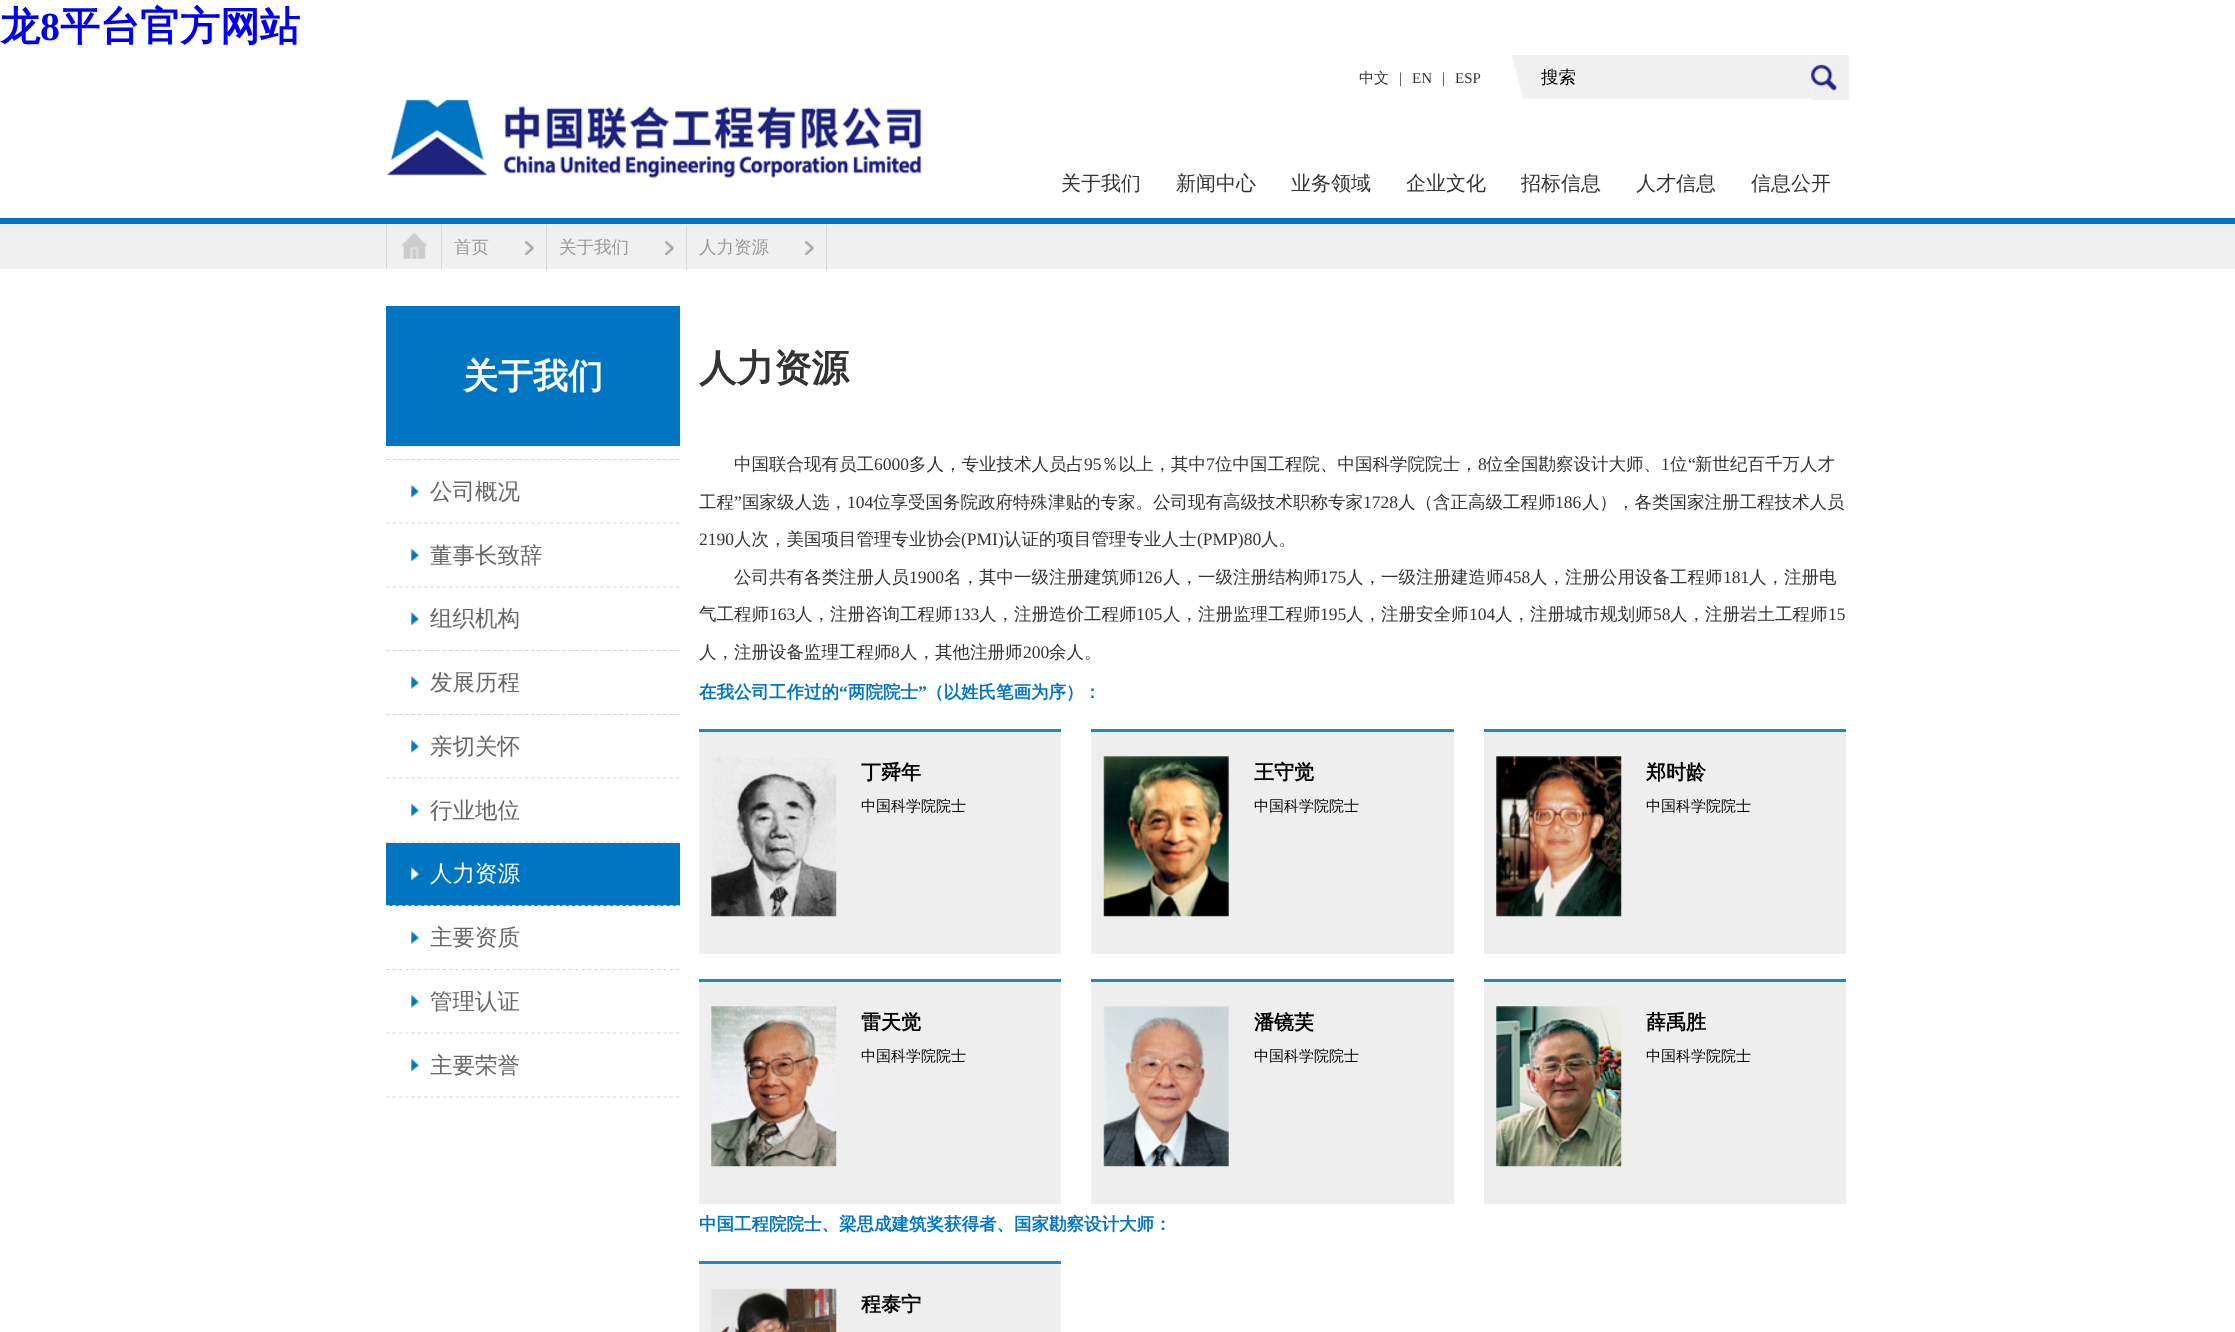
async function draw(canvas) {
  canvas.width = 2235;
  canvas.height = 1332;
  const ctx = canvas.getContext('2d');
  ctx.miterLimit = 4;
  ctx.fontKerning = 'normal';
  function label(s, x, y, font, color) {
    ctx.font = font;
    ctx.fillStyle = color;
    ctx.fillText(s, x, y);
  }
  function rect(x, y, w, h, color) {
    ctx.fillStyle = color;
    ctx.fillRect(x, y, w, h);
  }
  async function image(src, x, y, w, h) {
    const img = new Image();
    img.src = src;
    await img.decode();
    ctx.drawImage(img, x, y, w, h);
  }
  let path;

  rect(0, 0, 2235, 1332, '#fff');
  label('龙', 0, 40, 'bold 40px WenQuanYi Zen Hei', '#00e');
  label('8', 40, 40, 'bold 40px Liberation Serif', '#00e');
  label('平台官方网站', 60, 40, 'bold 40px WenQuanYi Zen Hei', '#00e');
  rect(0, 218, 2235, 6, '#0072c4');
  await image('assets/img1.png', 387, 99, 535, 79);
  label('中文', 1359, 83, '500 15px WenQuanYi Zen Hei', '#333');
  label('|', 1399, 83, '15px Liberation Serif', '#333');
  label('EN', 1412, 83, '15px Liberation Serif', '#333');
  label('|', 1442, 83, '15px Liberation Serif', '#333');
  label('ESP', 1455, 83, '15px Liberation Serif', '#333');
  await image('assets/img2.png', 1511, 55, 301, 44);
  label('搜索', 1541, 83, '500 17.5px WenQuanYi Zen Hei', '#000');
  await image('assets/img3.png', 1811, 55, 38, 45);
  label('关于我们', 1061, 190, '500 20px WenQuanYi Zen Hei', '#333');
  label('新闻中心', 1176, 190, '500 20px WenQuanYi Zen Hei', '#333');
  label('业务领域', 1291, 190, '500 20px WenQuanYi Zen Hei', '#333');
  label('企业文化', 1406, 190, '500 20px WenQuanYi Zen Hei', '#333');
  label('招标信息', 1521, 190, '500 20px WenQuanYi Zen Hei', '#333');
  label('人才信息', 1636, 190, '500 20px WenQuanYi Zen Hei', '#333');
  label('信息公开', 1751, 190, '500 20px WenQuanYi Zen Hei', '#333');
  rect(0, 224, 2235, 45, '#f0f0f0');
  rect(441, 224, 1, 45, '#d8d8d8');
  rect(386, 224, 1, 45, '#d8d8d8');
  await image('assets/img4.png', 401, 232, 27, 27);
  await image('assets/img5.png', 524, 241, 10, 14);
  rect(546, 225, 1, 45, '#d8d8d8');
  label('首页', 454, 253, '500 17.5px WenQuanYi Zen Hei', '#999');
  await image('assets/img5.png', 664, 241, 10, 14);
  rect(686, 225, 1, 45, '#d8d8d8');
  label('关于我们', 559, 253, '500 17.5px WenQuanYi Zen Hei', '#999');
  await image('assets/img5.png', 804, 241, 10, 14);
  rect(826, 225, 1, 45, '#d8d8d8');
  label('人力资源', 699, 253, '500 17.5px WenQuanYi Zen Hei', '#999');
  rect(386, 306, 294, 140, '#0075c2');
  label('关于我们', 463, 388, 'bold 35px WenQuanYi Zen Hei', '#fff');
  path = new Path2D('M386 459.5H680');
  ctx.strokeStyle = '#d7d7d7';
  ctx.lineWidth = 1.2;
  ctx.setLineDash([3.75, 2.55]);
  ctx.stroke(path);
  await image('assets/img6.png', 411, 485, 8, 13);
  path = new Path2D('M386 523H680');
  ctx.stroke(path);
  label('公司概况', 430, 499, '500 22.5px WenQuanYi Zen Hei', '#666');
  await image('assets/img7.png', 411, 548, 8, 14);
  path = new Path2D('M386 587H680');
  ctx.stroke(path);
  label('董事长致辞', 430, 563, '500 22.5px WenQuanYi Zen Hei', '#666');
  await image('assets/img8.png', 411, 612, 8, 13);
  path = new Path2D('M386 650.5H680');
  ctx.stroke(path);
  label('组织机构', 430, 626, '500 22.5px WenQuanYi Zen Hei', '#666');
  await image('assets/img9.png', 411, 676, 8, 13);
  path = new Path2D('M386 714.5H680');
  ctx.stroke(path);
  label('发展历程', 430, 690, '500 22.5px WenQuanYi Zen Hei', '#666');
  await image('assets/img6.png', 411, 740, 8, 13);
  path = new Path2D('M386 778H680');
  ctx.stroke(path);
  label('亲切关怀', 430, 754, '500 22.5px WenQuanYi Zen Hei', '#666');
  await image('assets/img7.png', 411, 803, 8, 14);
  path = new Path2D('M386 842H680');
  ctx.stroke(path);
  label('行业地位', 430, 818, '500 22.5px WenQuanYi Zen Hei', '#666');
  rect(386, 843, 294, 63, '#0075c2');
  await image('assets/img10.png', 411, 867, 8, 13);
  path = new Path2D('M386 905.5H680');
  ctx.stroke(path);
  label('人力资源', 430, 881, '500 22.5px WenQuanYi Zen Hei', '#fff');
  await image('assets/img9.png', 411, 931, 8, 13);
  path = new Path2D('M386 969.5H680');
  ctx.stroke(path);
  label('主要资质', 430, 945, '500 22.5px WenQuanYi Zen Hei', '#666');
  await image('assets/img6.png', 411, 995, 8, 13);
  path = new Path2D('M386 1033H680');
  ctx.stroke(path);
  label('管理认证', 430, 1009, '500 22.5px WenQuanYi Zen Hei', '#666');
  await image('assets/img7.png', 411, 1058, 8, 14);
  path = new Path2D('M386 1097H680');
  ctx.stroke(path);
  label('主要荣誉', 430, 1073, '500 22.5px WenQuanYi Zen Hei', '#666');
  label('人力资源', 699, 381, 'bold 37.5px WenQuanYi Zen Hei', '#333');
  label('中国联合现有员工', 734, 470, '500 17.5px WenQuanYi Zen Hei', '#333');
  label('6000', 874, 470, '17.5px Liberation Serif', '#333');
  label('多人，专业技术人员占', 909, 470, '500 17.5px WenQuanYi Zen Hei', '#333');
  label('95', 1084, 470, '17.5px Liberation Serif', '#333');
  label('％以上，其中', 1101, 470, '500 17.5px WenQuanYi Zen Hei', '#333');
  label('7', 1206, 470, '17.5px Liberation Serif', '#333');
  label('位中国工程院、中国科学院院士，', 1215, 470, '500 17.5px WenQuanYi Zen Hei', '#333');
  label('8', 1478, 470, '17.5px Liberation Serif', '#333');
  label('位全国勘察设计大师、', 1486, 470, '500 17.5px WenQuanYi Zen Hei', '#333');
  label('1', 1661, 470, '17.5px Liberation Serif', '#333');
  label('位', 1670, 470, '500 17.5px WenQuanYi Zen Hei', '#333');
  label('“', 1688, 470, '17.5px Liberation Serif', '#333');
  label('新世纪百千万人才', 1695, 470, '500 17.5px WenQuanYi Zen Hei', '#333');
  label('工程', 699, 508, '500 17.5px WenQuanYi Zen Hei', '#333');
  label('”', 734, 508, '17.5px Liberation Serif', '#333');
  label('国家级人选，', 742, 508, '500 17.5px WenQuanYi Zen Hei', '#333');
  label('104', 847, 508, '17.5px Liberation Serif', '#333');
  label('位享受国务院政府特殊津贴的专家。公司现有高级技术职称专家', 873, 508, '500 17.5px WenQuanYi Zen Hei', '#333');
  label('1728', 1363, 508, '17.5px Liberation Serif', '#333');
  label('人（含正高级工程师', 1398, 508, '500 17.5px WenQuanYi Zen Hei', '#333');
  label('186', 1555, 508, '17.5px Liberation Serif', '#333');
  label('人），各类国家注册工程技术人员', 1582, 508, '500 17.5px WenQuanYi Zen Hei', '#333');
  label('2190', 699, 545, '17.5px Liberation Serif', '#333');
  label('人次，美国项目管理专业协会', 734, 545, '500 17.5px WenQuanYi Zen Hei', '#333');
  label('(PMI)', 961, 545, '17.5px Liberation Serif', '#333');
  label('认证的项目管理专业人士', 1004, 545, '500 17.5px WenQuanYi Zen Hei', '#333');
  label('(PMP)80', 1197, 545, '17.5px Liberation Serif', '#333');
  label('人。', 1261, 545, '500 17.5px WenQuanYi Zen Hei', '#333');
  label('公司共有各类注册人员', 734, 583, '500 17.5px WenQuanYi Zen Hei', '#333');
  label('1900', 909, 583, '17.5px Liberation Serif', '#333');
  label('名，其中一级注册建筑师', 944, 583, '500 17.5px WenQuanYi Zen Hei', '#333');
  label('126', 1136, 583, '17.5px Liberation Serif', '#333');
  label('人，一级注册结构师', 1163, 583, '500 17.5px WenQuanYi Zen Hei', '#333');
  label('175', 1320, 583, '17.5px Liberation Serif', '#333');
  label('人，一级注册建造师', 1346, 583, '500 17.5px WenQuanYi Zen Hei', '#333');
  label('458', 1504, 583, '17.5px Liberation Serif', '#333');
  label('人，注册公用设备工程师', 1530, 583, '500 17.5px WenQuanYi Zen Hei', '#333');
  label('181', 1723, 583, '17.5px Liberation Serif', '#333');
  label('人，注册电', 1749, 583, '500 17.5px WenQuanYi Zen Hei', '#333');
  label('气工程师', 699, 620, '500 17.5px WenQuanYi Zen Hei', '#333');
  label('163', 769, 620, '17.5px Liberation Serif', '#333');
  label('人，注册咨询工程师', 795, 620, '500 17.5px WenQuanYi Zen Hei', '#333');
  label('133', 953, 620, '17.5px Liberation Serif', '#333');
  label('人，注册造价工程师', 979, 620, '500 17.5px WenQuanYi Zen Hei', '#333');
  label('105', 1136, 620, '17.5px Liberation Serif', '#333');
  label('人，注册监理工程师', 1163, 620, '500 17.5px WenQuanYi Zen Hei', '#333');
  label('195', 1320, 620, '17.5px Liberation Serif', '#333');
  label('人，注册安全师', 1346, 620, '500 17.5px WenQuanYi Zen Hei', '#333');
  label('104', 1469, 620, '17.5px Liberation Serif', '#333');
  label('人，注册城市规划师', 1495, 620, '500 17.5px WenQuanYi Zen Hei', '#333');
  label('58', 1653, 620, '17.5px Liberation Serif', '#333');
  label('人，注册岩土工程师', 1670, 620, '500 17.5px WenQuanYi Zen Hei', '#333');
  label('15', 1828, 620, '17.5px Liberation Serif', '#333');
  label('人，注册设备监理工程师', 699, 658, '500 17.5px WenQuanYi Zen Hei', '#333');
  label('8', 891, 658, '17.5px Liberation Serif', '#333');
  label('人，其他注册师', 900, 658, '500 17.5px WenQuanYi Zen Hei', '#333');
  label('200', 1023, 658, '17.5px Liberation Serif', '#333');
  label('余人。', 1049, 658, '500 17.5px WenQuanYi Zen Hei', '#333');
  label('在我公司工作过的', 699, 698, 'bold 17.5px WenQuanYi Zen Hei', '#0075c2');
  label('“', 839, 698, 'bold 17.5px Liberation Serif', '#0075c2');
  label('两院院士', 848, 698, 'bold 17.5px WenQuanYi Zen Hei', '#0075c2');
  label('”', 918, 698, 'bold 17.5px Liberation Serif', '#0075c2');
  label('（以姓氏笔画为序）：', 926, 698, 'bold 17.5px WenQuanYi Zen Hei', '#0075c2');
  rect(699, 732, 362, 222, '#eee');
  rect(699, 729, 362, 3, '#2387c3');
  await image('assets/img11.png', 711, 756, 126, 161);
  label('丁舜年', 861, 779, 'bold 20px WenQuanYi Zen Hei', '#000');
  label('中国科学院院士', 861, 811, '500 15px WenQuanYi Zen Hei', '#000');
  rect(1091, 732, 363, 222, '#eee');
  rect(1091, 729, 363, 3, '#2387c3');
  await image('assets/img12.png', 1103, 756, 126, 161);
  label('王守觉', 1254, 779, 'bold 20px WenQuanYi Zen Hei', '#000');
  label('中国科学院院士', 1254, 811, '500 15px WenQuanYi Zen Hei', '#000');
  rect(1484, 732, 362, 222, '#eee');
  rect(1484, 729, 362, 3, '#2387c3');
  await image('assets/img13.png', 1496, 756, 126, 161);
  label('郑时龄', 1646, 779, 'bold 20px WenQuanYi Zen Hei', '#000');
  label('中国科学院院士', 1646, 811, '500 15px WenQuanYi Zen Hei', '#000');
  rect(699, 982, 362, 222, '#eee');
  rect(699, 979, 362, 3, '#2387c3');
  await image('assets/img14.png', 711, 1006, 126, 161);
  label('雷天觉', 861, 1029, 'bold 20px WenQuanYi Zen Hei', '#000');
  label('中国科学院院士', 861, 1061, '500 15px WenQuanYi Zen Hei', '#000');
  rect(1091, 982, 363, 222, '#eee');
  rect(1091, 979, 363, 3, '#2387c3');
  await image('assets/img15.png', 1103, 1006, 126, 161);
  label('潘镜芙', 1254, 1029, 'bold 20px WenQuanYi Zen Hei', '#000');
  label('中国科学院院士', 1254, 1061, '500 15px WenQuanYi Zen Hei', '#000');
  rect(1484, 982, 362, 222, '#eee');
  rect(1484, 979, 362, 3, '#2387c3');
  await image('assets/img16.png', 1496, 1006, 126, 161);
  label('薛禹胜', 1646, 1029, 'bold 20px WenQuanYi Zen Hei', '#000');
  label('中国科学院院士', 1646, 1061, '500 15px WenQuanYi Zen Hei', '#000');
  label('中国工程院院士、梁思成建筑奖获得者、国家勘察设计大师：', 699, 1230, 'bold 17.5px WenQuanYi Zen Hei', '#0075c2');
  rect(699, 1264, 362, 68, '#eee');
  rect(699, 1261, 362, 3, '#2387c3');
  await image('assets/img17.png', 711, 1288, 126, 44);
  label('程泰宁', 861, 1311, 'bold 20px WenQuanYi Zen Hei', '#000');
}

draw(document.querySelector('canvas'));
